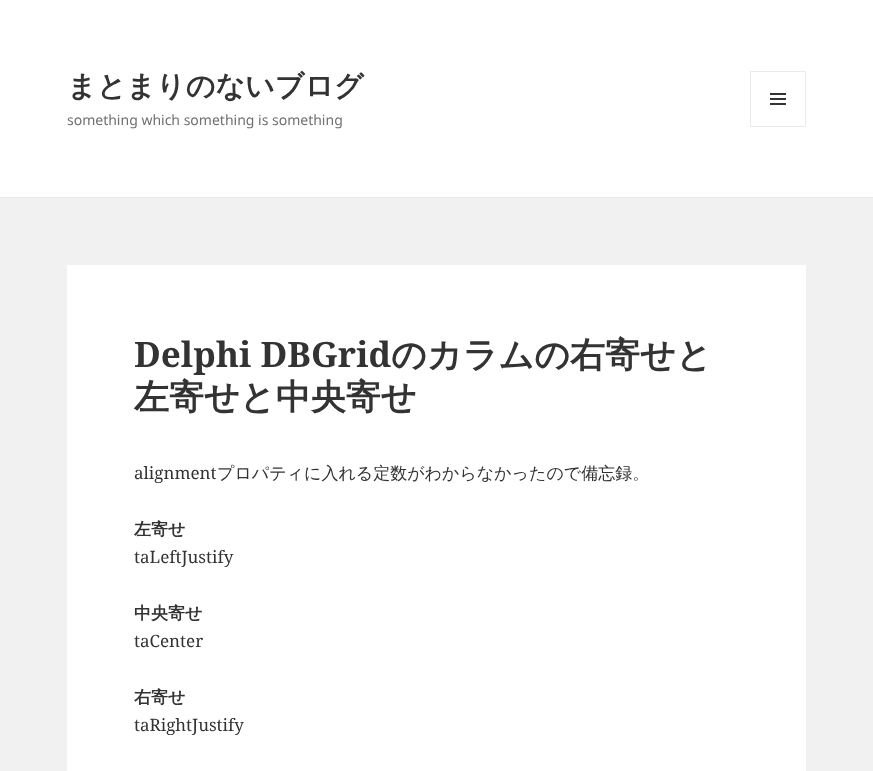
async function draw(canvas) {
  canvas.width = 873;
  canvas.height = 771;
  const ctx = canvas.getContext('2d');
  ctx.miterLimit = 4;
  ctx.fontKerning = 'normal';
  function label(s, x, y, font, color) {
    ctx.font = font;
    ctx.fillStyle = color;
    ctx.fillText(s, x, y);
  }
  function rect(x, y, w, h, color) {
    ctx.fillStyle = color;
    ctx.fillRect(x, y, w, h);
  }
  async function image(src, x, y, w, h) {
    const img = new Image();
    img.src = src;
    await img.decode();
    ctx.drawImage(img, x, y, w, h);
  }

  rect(0, 0, 873, 771, '#f1f1f1');
  rect(0, 0, 873, 197, '#fff');
  rect(0, 197, 873, 1, '#ebebeb');
  label('まとまりのないブログ', 67, 96, 'bold 29px WenQuanYi Zen Hei', '#333');
  ctx.strokeStyle = '#ebebeb';
  ctx.strokeRect(750.5, 71.5, 55, 55);
  await image('assets/img1.png', 770, 93, 16, 12);
  label('something which something is something', 67, 125, '14px Noto Sans', '#707070');
  rect(67, 265, 739, 506, '#fff');
  label('Delphi DBGrid', 134, 367, 'bold 35px Noto Serif', '#333');
  label('のカラムの右寄せと', 391, 367, 'bold 35px WenQuanYi Zen Hei', '#333');
  label('左寄せと中央寄せ', 134, 409, 'bold 35px WenQuanYi Zen Hei', '#333');
  label('alignment', 134, 479, '17px Noto Serif', '#333');
  label('プロパティに入れる定数がわからなかったので備忘録。', 217, 479, '500 17px WenQuanYi Zen Hei', '#333');
  label('左寄せ', 134, 535, 'bold 17px WenQuanYi Zen Hei', '#333');
  label('taLeftJustify', 134, 563, '17px Noto Serif', '#333');
  label('中央寄せ', 134, 619, 'bold 17px WenQuanYi Zen Hei', '#333');
  label('taCenter', 134, 647, '17px Noto Serif', '#333');
  label('右寄せ', 134, 703, 'bold 17px WenQuanYi Zen Hei', '#333');
  label('taRightJustify', 134, 731, '17px Noto Serif', '#333');
}

draw(document.querySelector('canvas'));
